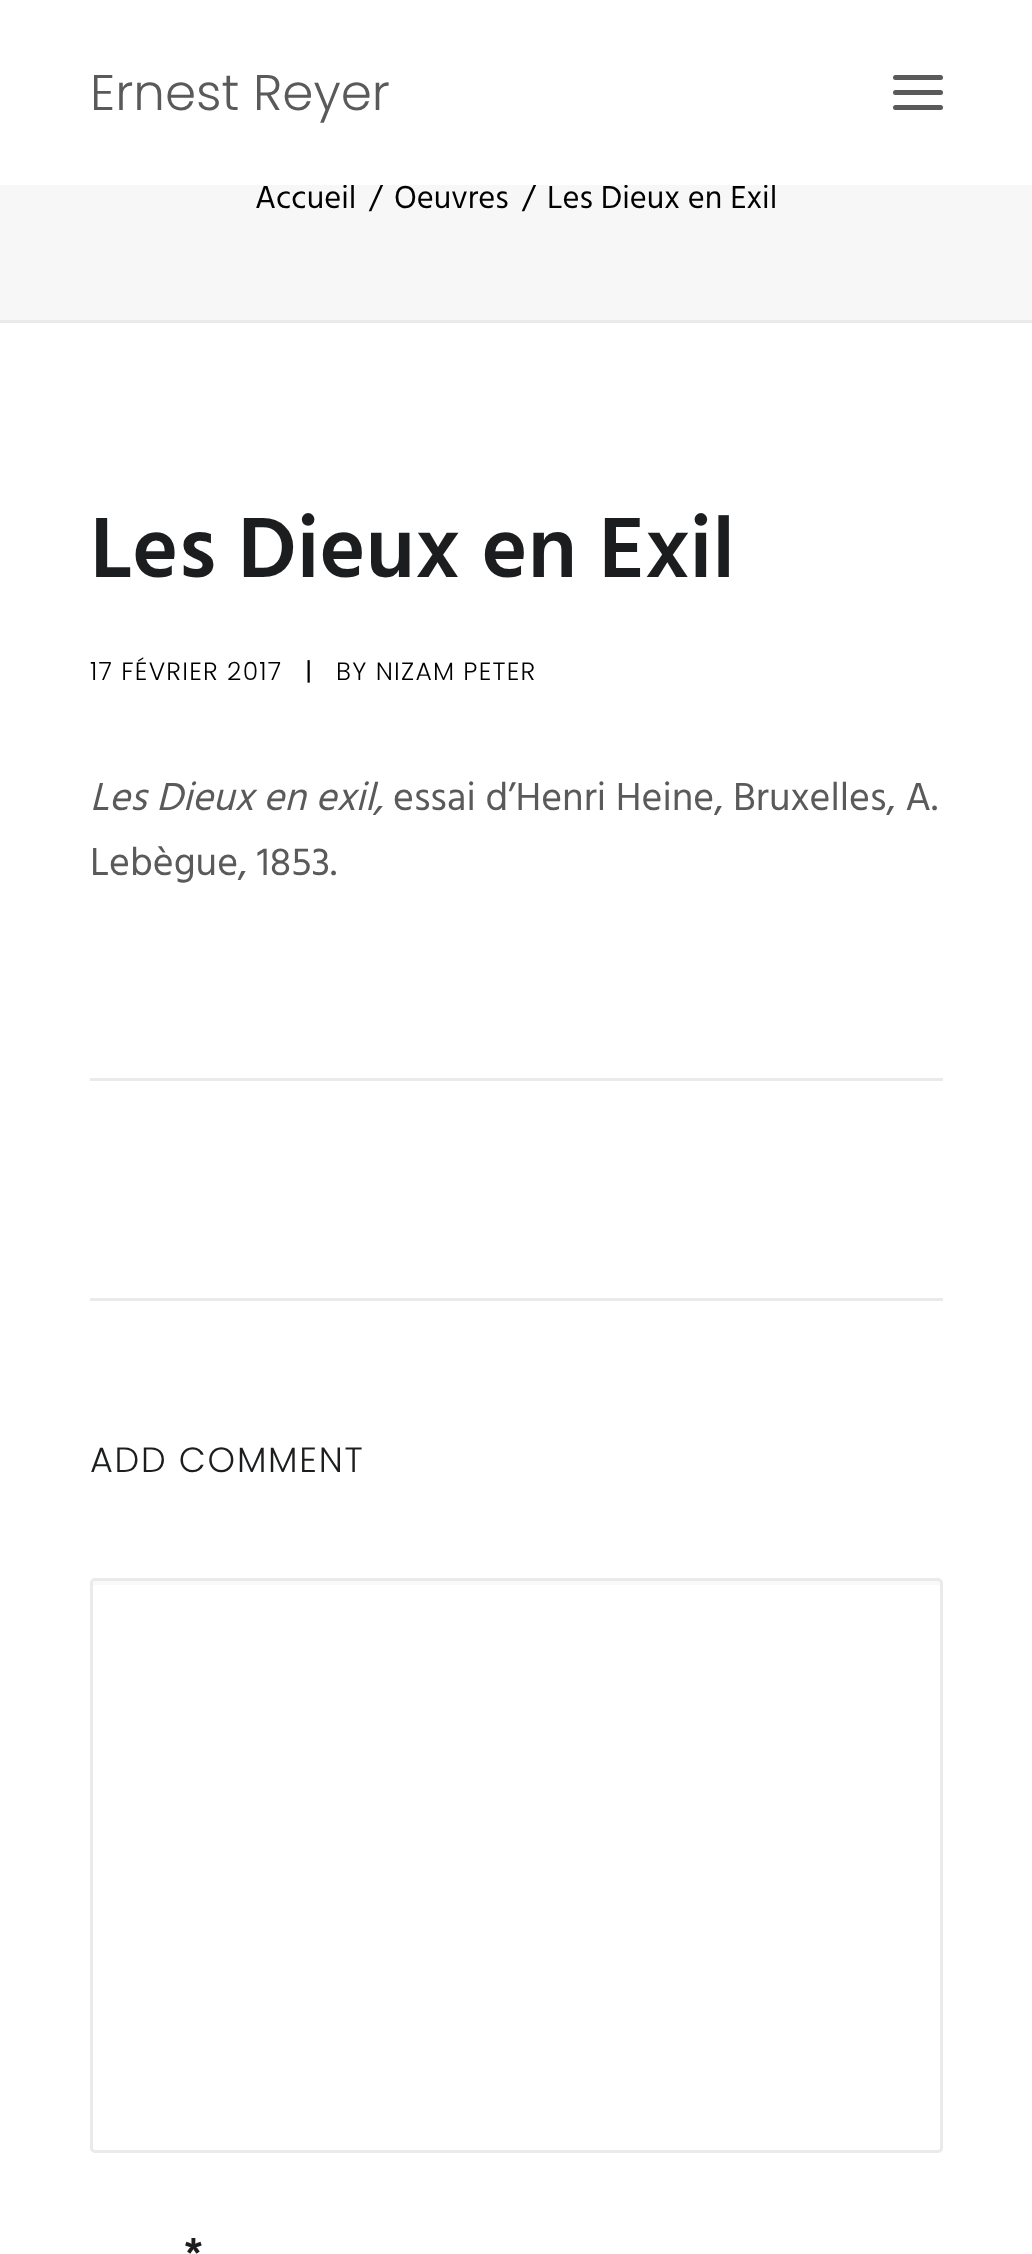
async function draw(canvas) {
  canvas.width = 1032;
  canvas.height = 2254;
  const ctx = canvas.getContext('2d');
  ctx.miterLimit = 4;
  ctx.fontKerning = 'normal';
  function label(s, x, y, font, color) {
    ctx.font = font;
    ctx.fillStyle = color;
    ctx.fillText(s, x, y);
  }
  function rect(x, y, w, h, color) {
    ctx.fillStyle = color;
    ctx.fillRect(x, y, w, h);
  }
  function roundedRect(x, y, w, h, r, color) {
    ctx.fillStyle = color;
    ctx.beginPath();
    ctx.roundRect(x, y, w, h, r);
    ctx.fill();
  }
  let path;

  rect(0, 0, 1032, 2254, '#f7f7f7');
  label('Accueil', 255, 208, '32.5px Hind', '#000');
  label('Les Dieux en Exil', 547, 208, '32.5px Hind', '#000');
  rect(0, 0, 1032, 185, '#fff');
  label('Ernest Reyer', 90, 110, '300 50px Poppins', '#5a5a5a');
  roundedRect(893, 90, 50, 5, 2.5, '#5a5a5a');
  roundedRect(893, 75, 50, 5, 2.5, '#5a5a5a');
  roundedRect(893, 105, 50, 5, 2.5, '#5a5a5a');
  rect(0, 320, 1032, 3, '#eaeaea');
  label('/', 369, 208, '32.5px Hind', '#000');
  label('Oeuvres', 394, 208, '32.5px Hind', '#000');
  label('/', 522, 208, '32.5px Hind', '#000');
  rect(0, 323, 1032, 1931, '#fff');
  label('Les Dieux en Exil', 90, 577, '600 87.5px Hind', '#1b1d1f');
  ctx.letterSpacing = '1.25px';
  label('17 FÉVRIER 2017', 90, 680, '300 25px Poppins', '#000');
  label('|', 305, 680, '25px Poppins', '#000');
  label('BY NIZAM PETER', 336, 680, '300 25px Poppins', '#000');
  ctx.letterSpacing = '0px';
  label('Les Dieux en exil,', 90, 810, 'italic 40px Hind', '#5a5a5a');
  label('essai d’Henri Heine, Bruxelles, A.', 393, 810, '40px Hind', '#5a5a5a');
  label('Lebègue, 1853.', 90, 875, '40px Hind', '#5a5a5a');
  rect(90, 1078, 853, 3, '#eaeaea');
  rect(90, 1298, 853, 3, '#eaeaea');
  ctx.letterSpacing = '1.75px';
  label('ADD COMMENT', 90, 1472, '300 35px Poppins', '#1b1d1f');
  ctx.fillStyle = '#f9f9f9';
  path = new Path2D('M95 1585H938C939 1585 940 1586 940 1588V1582C940 1581 939 1580 938 1580H96C94 1580 93 1581 93 1582V1586Z');
  ctx.fill(path);
  ctx.beginPath();
  ctx.roundRect(91.5, 1579.5, 850, 572, 3.5);
  ctx.strokeStyle = '#eaeaea';
  ctx.lineWidth = 3;
  ctx.stroke();
  ctx.letterSpacing = '0px';
  label('*', 184, 2265, '600 40px Hind', '#1b1d1f');
}

draw(document.querySelector('canvas'));
